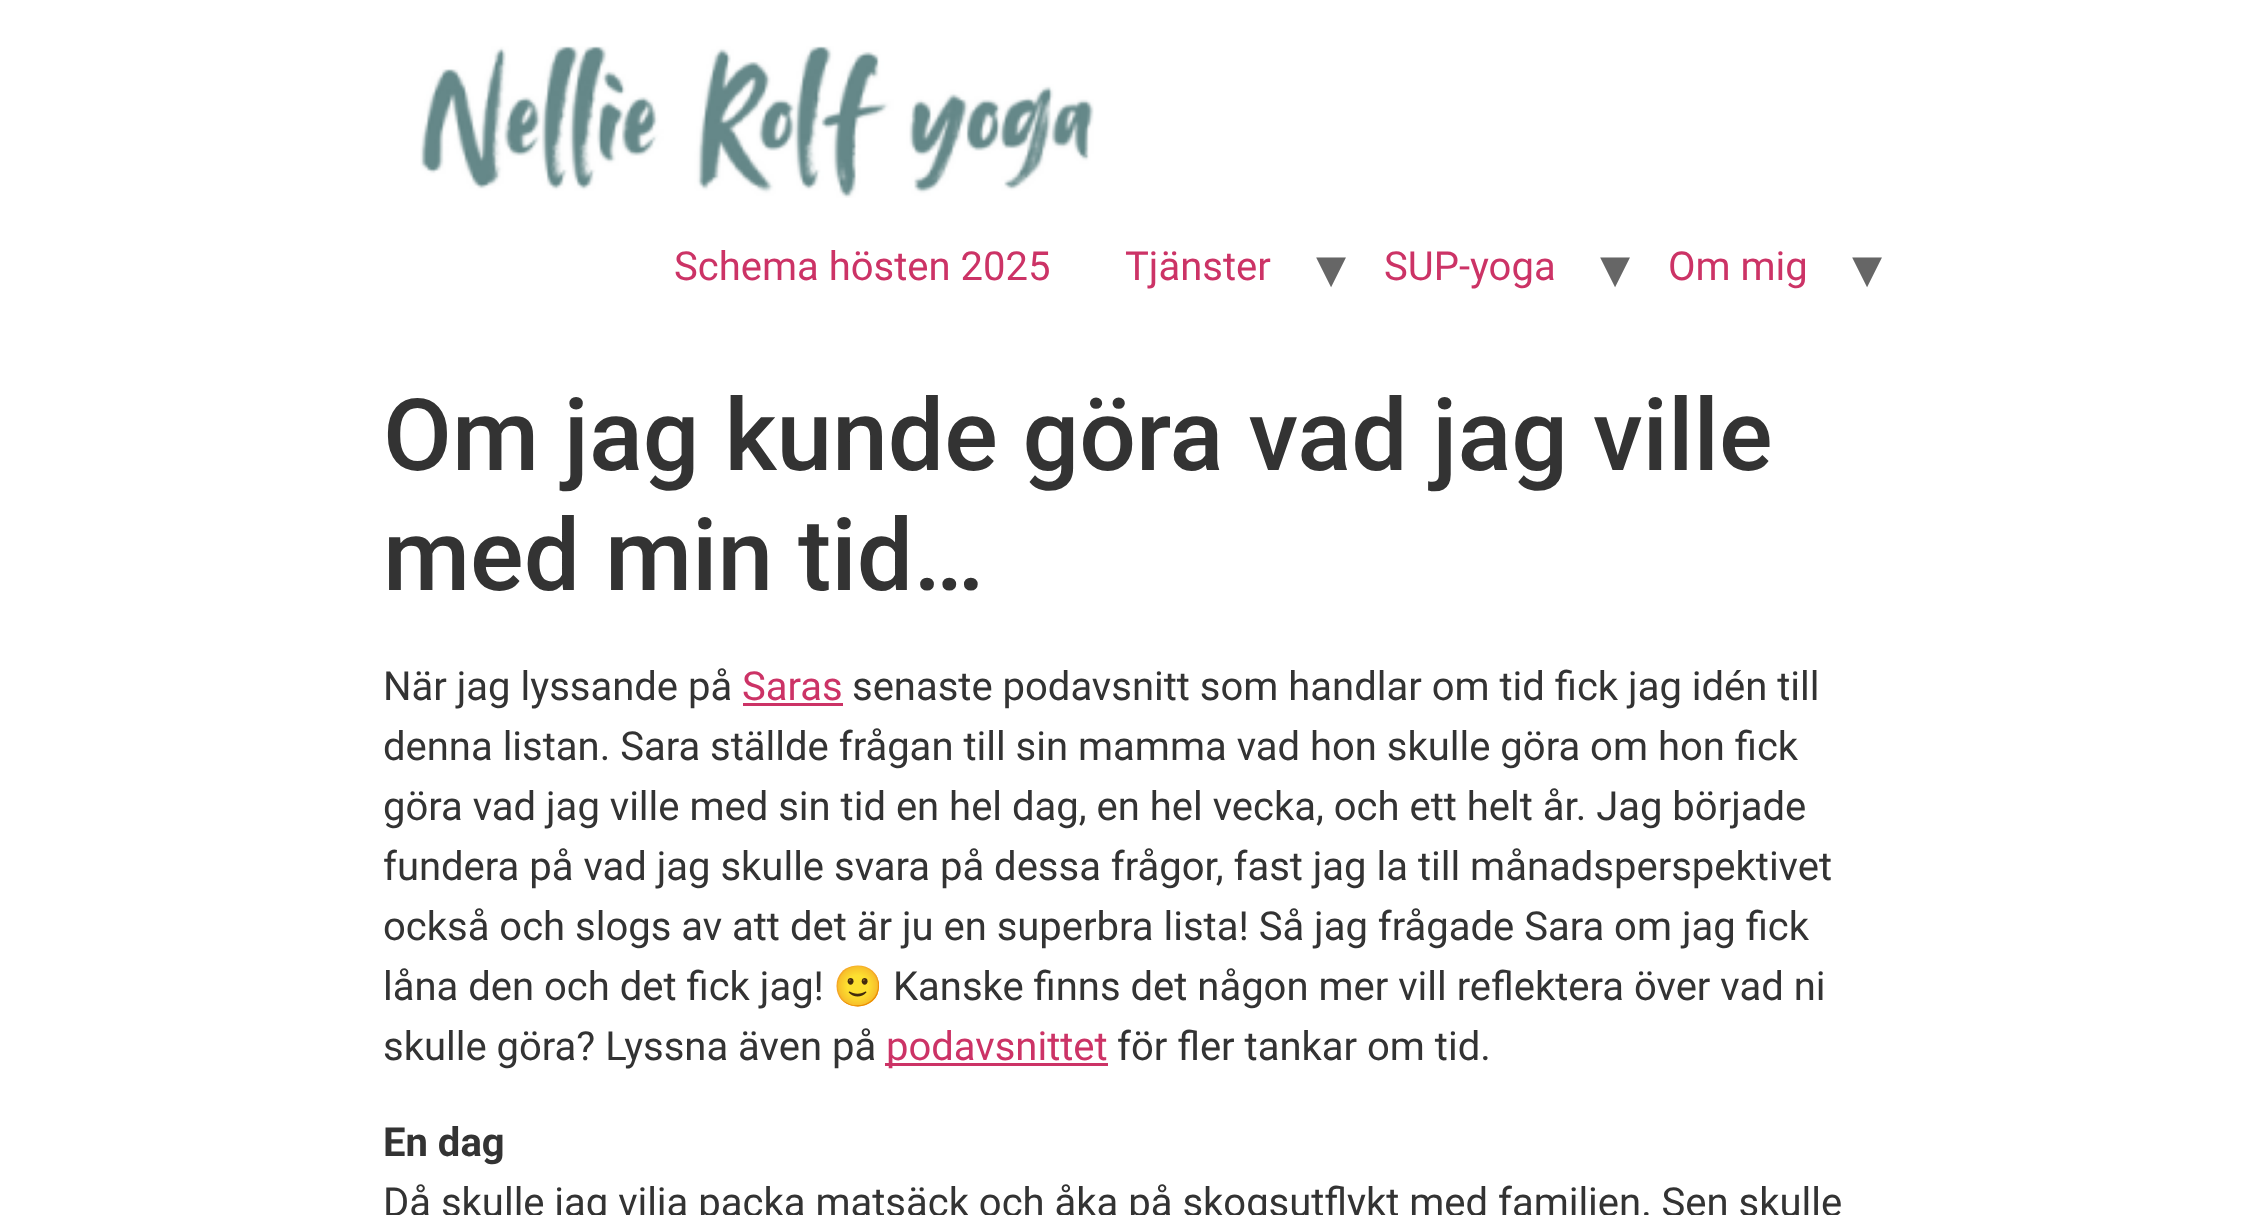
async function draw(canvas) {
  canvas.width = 2263;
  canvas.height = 1215;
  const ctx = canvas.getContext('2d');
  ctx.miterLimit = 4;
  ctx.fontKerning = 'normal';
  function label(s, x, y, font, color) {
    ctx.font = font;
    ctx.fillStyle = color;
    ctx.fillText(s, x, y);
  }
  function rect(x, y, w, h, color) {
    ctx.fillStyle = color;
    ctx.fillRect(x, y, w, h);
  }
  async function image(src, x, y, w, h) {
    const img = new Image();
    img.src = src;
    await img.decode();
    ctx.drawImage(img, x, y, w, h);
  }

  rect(0, 0, 2263, 1215, '#fff');
  await image('assets/img1.png', 420, 46, 674, 152);
  label('Schema hösten 2025', 674, 280, '40px Roboto', '#c36');
  label('Tjänster', 1125, 280, '40px Roboto', '#c36');
  label('▾', 1316, 288, '60px DejaVu Sans', '#666');
  label('SUP-yoga', 1384, 280, '40px Roboto', '#c36');
  label('▾', 1600, 288, '60px DejaVu Sans', '#666');
  label('Om mig', 1668, 280, '40px Roboto', '#c36');
  label('▾', 1852, 288, '60px DejaVu Sans', '#666');
  label('Om jag kunde göra vad jag ville', 383, 470, '500 100px Roboto', '#333');
  label('med min tid…', 383, 590, '500 100px Roboto', '#333');
  label('När jag lyssande på', 383, 700, '40px Roboto', '#333');
  label('Saras', 742, 700, '40px Roboto', '#c36');
  rect(743, 703, 100, 3, '#c36');
  label('senaste podavsnitt som handlar om tid fick jag idén till', 852, 700, '40px Roboto', '#333');
  label('denna listan. Sara ställde frågan till sin mamma vad hon skulle göra om hon fick', 383, 760, '40px Roboto', '#333');
  label('göra vad jag ville med sin tid en hel dag, en hel vecka, och ett helt år. Jag började', 383, 820, '40px Roboto', '#333');
  label('fundera på vad jag skulle svara på dessa frågor, fast jag la till månadsperspektivet', 383, 880, '40px Roboto', '#333');
  label('också och slogs av att det är ju en superbra lista! Så jag frågade Sara om jag fick', 383, 940, '40px Roboto', '#333');
  label('låna den och det fick jag!', 383, 1000, '40px Roboto', '#333');
  label('🙂', 833, 1000, '40px Noto Color Emoji', '#333');
  label('Kanske finns det någon mer vill reflektera över vad ni', 893, 1000, '40px Roboto', '#333');
  label('skulle göra? Lyssna även på', 383, 1060, '40px Roboto', '#333');
  rect(885, 1063, 223, 3, '#c36');
  label('podavsnittet', 886, 1060, '40px Roboto', '#c36');
  label('för fler tankar om tid.', 1117, 1060, '40px Roboto', '#333');
  label('En dag', 383, 1156, 'bold 40px Roboto', '#333');
  label('Då skulle jag vilja packa matsäck och åka på skogsutflykt med familjen. Sen skulle', 383, 1216, '40px Roboto', '#333');
}

draw(document.querySelector('canvas'));
